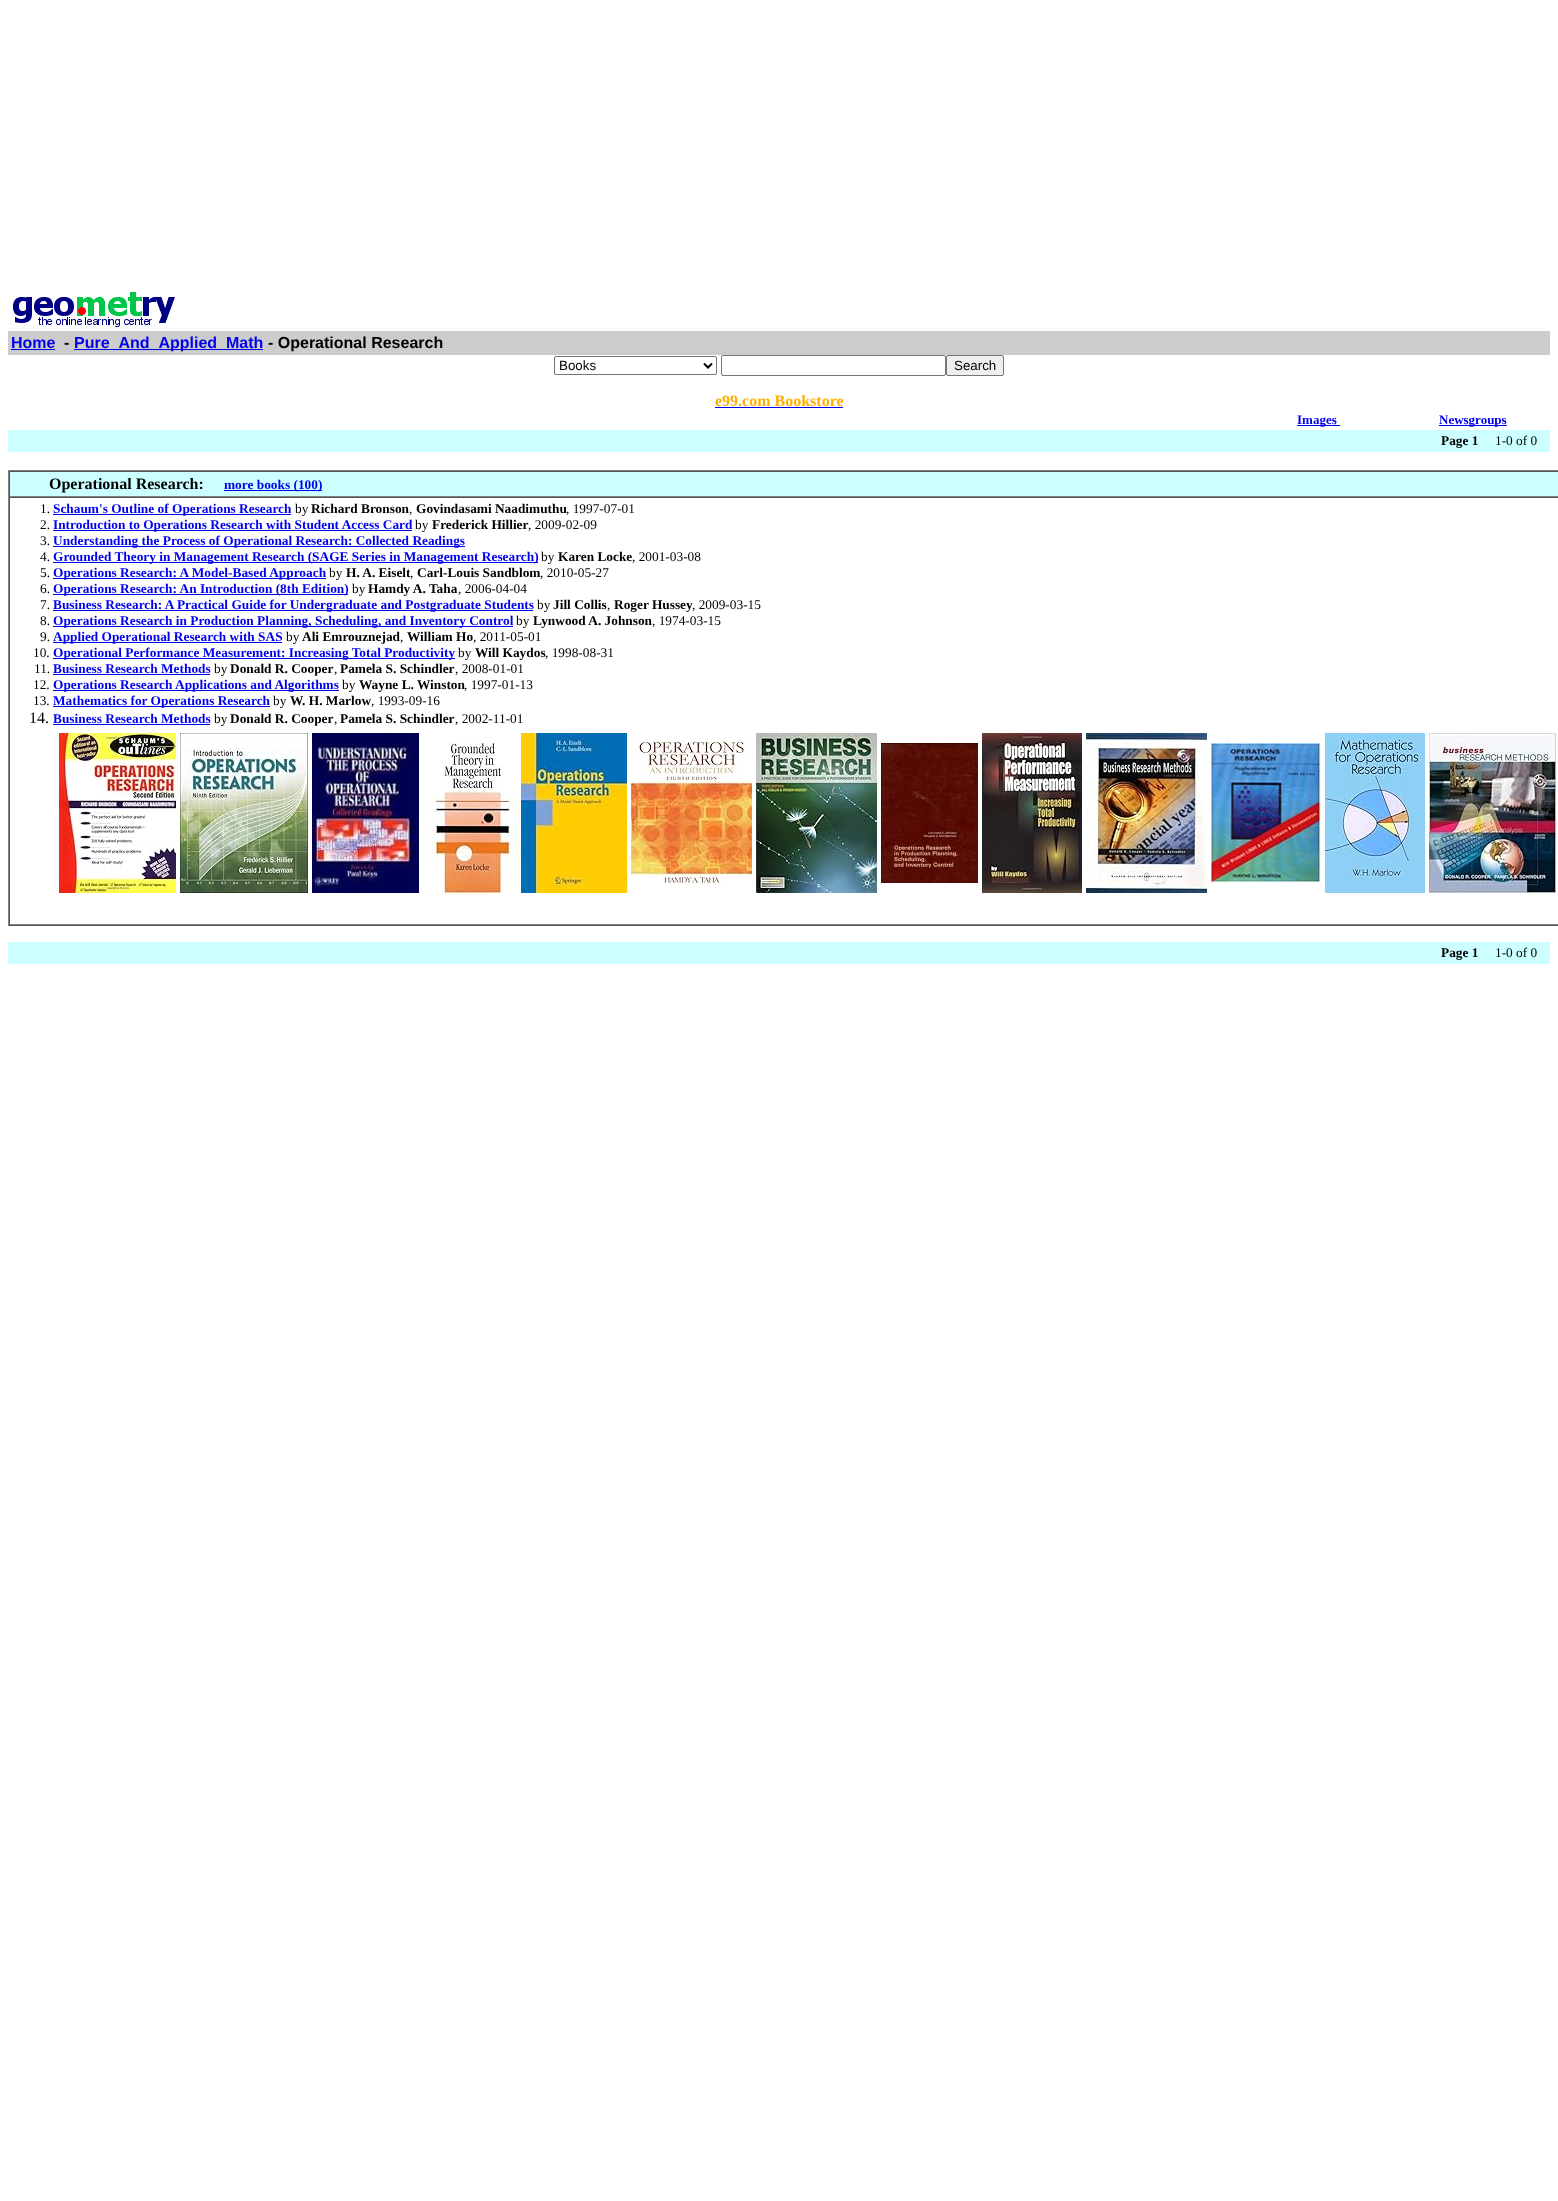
async function draw(canvas) {
  canvas.width = 1558;
  canvas.height = 2201;
  const ctx = canvas.getContext('2d');
  ctx.miterLimit = 4;
  ctx.fontKerning = 'normal';
  function label(s, x, y, font, color) {
    ctx.font = font;
    ctx.fillStyle = color;
    ctx.fillText(s, x, y);
  }
  function rect(x, y, w, h, color) {
    ctx.fillStyle = color;
    ctx.fillRect(x, y, w, h);
  }
  async function image(src, x, y, w, h) {
    const img = new Image();
    img.src = src;
    await img.decode();
    ctx.drawImage(img, x, y, w, h);
  }
  let path;

  rect(0, 0, 1558, 2201, '#fff');
  await image('assets/img1.png', 13, 292, 162, 35);
  rect(8, 331, 1542, 24, '#ccc');
  label('Home', 11, 348, 'bold 16px Liberation Sans', '#00e');
  rect(11, 349, 44, 1, '#00e');
  label('-', 64, 348, 'bold 16px Liberation Sans', '#000');
  rect(74, 349, 189, 1, '#00e');
  label('Pure_And_Applied_Math', 74, 348, 'bold 16px Liberation Sans', '#00e');
  label('- Operational Research', 268, 348, 'bold 16px Liberation Sans', '#000');
  ctx.beginPath();
  ctx.roundRect(554.5, 356.5, 162, 18, 1.5);
  ctx.strokeStyle = '#767676';
  ctx.stroke();
  path = new Path2D('M704 363.5L708 367.5L712 363.5');
  ctx.strokeStyle = '#000';
  ctx.lineWidth = 2;
  ctx.stroke(path);
  label('Books', 559, 370, '13.35px Liberation Sans', '#000');
  ctx.beginPath();
  ctx.roundRect(721.5, 355.5, 224, 20, 1.5);
  ctx.strokeStyle = '#767676';
  ctx.lineWidth = 1;
  ctx.stroke();
  ctx.fillStyle = '#efefef';
  ctx.beginPath();
  ctx.roundRect(946.5, 355.5, 57, 20, 1.5);
  ctx.fill();
  ctx.stroke();
  label('Search', 954, 370, '13.35px Liberation Sans', '#000');
  label('e99.com Bookstore', 715, 406, 'bold 16px Liberation Serif', '#ffaf00');
  rect(715, 407, 128, 1, '#00e');
  rect(1297, 425, 43, 1, '#00e');
  label('Images', 1297, 424, 'bold 13px Liberation Serif', '#00e');
  rect(1439, 425, 68, 1, '#00e');
  label('Newsgroups', 1439, 424, 'bold 13px Liberation Serif', '#00e');
  rect(8, 430, 1542, 22, '#cff');
  label('Page 1', 1441, 445, 'bold 13.35px Liberation Serif', '#000');
  label('1-0 of 0', 1495, 445, '13.35px Liberation Serif', '#000');
  rect(8, 470, 1550, 1, '#808080');
  rect(8, 925, 1550, 1, '#555');
  rect(8, 470, 1, 456, '#808080');
  rect(10, 472, 1548, 24, '#cff');
  rect(9, 471, 1549, 1, '#555');
  rect(9, 496, 1549, 1, '#808080');
  rect(9, 471, 1, 26, '#555');
  label('Operational Research:', 49, 489, 'bold 16px Liberation Serif', '#000');
  rect(224, 490, 98, 1, '#00e');
  label('more books (100)', 224, 489, 'bold 13.35px Liberation Serif', '#00e');
  rect(9, 497, 1549, 1, '#555');
  rect(9, 924, 1549, 1, '#808080');
  rect(9, 497, 1, 428, '#555');
  label('1.', 40, 513, '13.35px Liberation Serif', '#000');
  rect(53, 514, 238, 1, '#00e');
  label('Schaum\'s Outline of Operations Research', 53, 513, 'bold 13.35px Liberation Serif', '#00e');
  label('by', 295, 513, '13.35px Liberation Serif', '#000');
  label('Richard Bronson', 311, 513, 'bold 13.35px Liberation Serif', '#000');
  label(',', 409, 513, '13.35px Liberation Serif', '#000');
  label('Govindasami Naadimuthu', 416, 513, 'bold 13.35px Liberation Serif', '#000');
  label(', 1997-07-01', 566, 513, '13.35px Liberation Serif', '#000');
  label('2.', 40, 529, '13.35px Liberation Serif', '#000');
  rect(53, 530, 359, 1, '#00e');
  label('Introduction to Operations Research with Student Access Card', 53, 529, 'bold 13.35px Liberation Serif', '#00e');
  label('by', 415, 529, '13.35px Liberation Serif', '#000');
  label('Frederick Hillier', 432, 529, 'bold 13.35px Liberation Serif', '#000');
  label(', 2009-02-09', 528, 529, '13.35px Liberation Serif', '#000');
  label('3.', 40, 545, '13.35px Liberation Serif', '#000');
  rect(53, 546, 412, 1, '#00e');
  label('Understanding the Process of Operational Research: Collected Readings', 53, 545, 'bold 13.35px Liberation Serif', '#00e');
  label('4.', 40, 561, '13.35px Liberation Serif', '#000');
  rect(53, 562, 485, 1, '#00e');
  label('Grounded Theory in Management Research (SAGE Series in Management Research)', 53, 561, 'bold 13.35px Liberation Serif', '#00e');
  label('by', 541, 561, '13.35px Liberation Serif', '#000');
  label('Karen Locke', 558, 561, 'bold 13.35px Liberation Serif', '#000');
  label(', 2001-03-08', 632, 561, '13.35px Liberation Serif', '#000');
  label('5.', 40, 577, '13.35px Liberation Serif', '#000');
  rect(53, 578, 273, 1, '#00e');
  label('Operations Research: A Model-Based Approach', 53, 577, 'bold 13.35px Liberation Serif', '#00e');
  label('by', 329, 577, '13.35px Liberation Serif', '#000');
  label('H. A. Eiselt', 346, 577, 'bold 13.35px Liberation Serif', '#000');
  label(',', 410, 577, '13.35px Liberation Serif', '#000');
  label('Carl-Louis Sandblom', 417, 577, 'bold 13.35px Liberation Serif', '#000');
  label(', 2010-05-27', 540, 577, '13.35px Liberation Serif', '#000');
  label('6.', 40, 593, '13.35px Liberation Serif', '#000');
  rect(53, 594, 295, 1, '#00e');
  label('Operations Research: An Introduction (8th Edition)', 53, 593, 'bold 13.35px Liberation Serif', '#00e');
  label('by', 352, 593, '13.35px Liberation Serif', '#000');
  label('Hamdy A. Taha', 368, 593, 'bold 13.35px Liberation Serif', '#000');
  label(', 2006-04-04', 458, 593, '13.35px Liberation Serif', '#000');
  label('7.', 40, 609, '13.35px Liberation Serif', '#000');
  rect(53, 610, 480, 1, '#00e');
  label('Business Research: A Practical Guide for Undergraduate and Postgraduate Students', 53, 609, 'bold 13.35px Liberation Serif', '#00e');
  label('by', 537, 609, '13.35px Liberation Serif', '#000');
  label('Jill Collis', 553, 609, 'bold 13.35px Liberation Serif', '#000');
  label(',', 607, 609, '13.35px Liberation Serif', '#000');
  label('Roger Hussey', 614, 609, 'bold 13.35px Liberation Serif', '#000');
  label(', 2009-03-15', 692, 609, '13.35px Liberation Serif', '#000');
  label('8.', 40, 625, '13.35px Liberation Serif', '#000');
  rect(53, 626, 460, 1, '#00e');
  label('Operations Research in Production Planning, Scheduling, and Inventory Control', 53, 625, 'bold 13.35px Liberation Serif', '#00e');
  label('by', 516, 625, '13.35px Liberation Serif', '#000');
  label('Lynwood A. Johnson', 533, 625, 'bold 13.35px Liberation Serif', '#000');
  label(', 1974-03-15', 652, 625, '13.35px Liberation Serif', '#000');
  label('9.', 40, 641, '13.35px Liberation Serif', '#000');
  rect(53, 642, 229, 1, '#00e');
  label('Applied Operational Research with SAS', 53, 641, 'bold 13.35px Liberation Serif', '#00e');
  label('by', 286, 641, '13.35px Liberation Serif', '#000');
  label('Ali Emrouznejad', 302, 641, 'bold 13.35px Liberation Serif', '#000');
  label(',', 400, 641, '13.35px Liberation Serif', '#000');
  label('William Ho', 407, 641, 'bold 13.35px Liberation Serif', '#000');
  label(', 2011-05-01', 473, 641, '13.35px Liberation Serif', '#000');
  label('10.', 33, 657, '13.35px Liberation Serif', '#000');
  rect(53, 658, 402, 1, '#00e');
  label('Operational Performance Measurement: Increasing Total Productivity', 53, 657, 'bold 13.35px Liberation Serif', '#00e');
  label('by', 458, 657, '13.35px Liberation Serif', '#000');
  label('Will Kaydos', 475, 657, 'bold 13.35px Liberation Serif', '#000');
  label(', 1998-08-31', 545, 657, '13.35px Liberation Serif', '#000');
  label('11.', 34, 673, '13.35px Liberation Serif', '#000');
  label('Business Research Methods', 53, 673, 'bold 13.35px Liberation Serif', '#00e');
  rect(53, 674, 157, 1, '#00e');
  label('by', 214, 673, '13.35px Liberation Serif', '#000');
  label('Donald R. Cooper', 230, 673, 'bold 13.35px Liberation Serif', '#000');
  label(',', 334, 673, '13.35px Liberation Serif', '#000');
  label('Pamela S. Schindler', 340, 673, 'bold 13.35px Liberation Serif', '#000');
  label(', 2008-01-01', 455, 673, '13.35px Liberation Serif', '#000');
  label('12.', 33, 689, '13.35px Liberation Serif', '#000');
  rect(53, 690, 286, 1, '#00e');
  label('Operations Research Applications and Algorithms', 53, 689, 'bold 13.35px Liberation Serif', '#00e');
  label('by', 342, 689, '13.35px Liberation Serif', '#000');
  label('Wayne L. Winston', 359, 689, 'bold 13.35px Liberation Serif', '#000');
  label(', 1997-01-13', 464, 689, '13.35px Liberation Serif', '#000');
  label('13.', 33, 705, '13.35px Liberation Serif', '#000');
  rect(53, 706, 217, 1, '#00e');
  label('Mathematics for Operations Research', 53, 705, 'bold 13.35px Liberation Serif', '#00e');
  label('by', 273, 705, '13.35px Liberation Serif', '#000');
  label('W. H. Marlow', 290, 705, 'bold 13.35px Liberation Serif', '#000');
  label(', 1993-09-16', 371, 705, '13.35px Liberation Serif', '#000');
  label('14.', 29, 723, '16px Liberation Serif', '#000');
  label('Business Research Methods', 53, 723, 'bold 13.35px Liberation Serif', '#00e');
  rect(53, 724, 157, 1, '#00e');
  label('by', 214, 723, '13.35px Liberation Serif', '#000');
  label('Donald R. Cooper', 230, 723, 'bold 13.35px Liberation Serif', '#000');
  label(',', 334, 723, '13.35px Liberation Serif', '#000');
  label('Pamela S. Schindler', 340, 723, 'bold 13.35px Liberation Serif', '#000');
  label(', 2002-11-01', 455, 723, '13.35px Liberation Serif', '#000');
  await image('assets/img2.png', 59, 733, 117, 160);
  await image('assets/img3.png', 180, 733, 128, 160);
  await image('assets/img4.png', 312, 733, 107, 160);
  await image('assets/img5.png', 423, 741, 94, 152);
  await image('assets/img6.png', 521, 733, 106, 160);
  await image('assets/img7.png', 631, 740, 121, 145);
  await image('assets/img8.png', 756, 733, 121, 160);
  await image('assets/img9.png', 881, 743, 97, 140);
  await image('assets/img10.png', 982, 733, 100, 160);
  await image('assets/img11.png', 1086, 733, 121, 160);
  await image('assets/img12.png', 1211, 743, 110, 140);
  await image('assets/img13.png', 1325, 733, 100, 160);
  await image('assets/img14.png', 1429, 733, 127, 160);
  rect(8, 942, 1542, 22, '#cff');
  label('Page 1', 1441, 957, 'bold 13.35px Liberation Serif', '#000');
  label('1-0 of 0', 1495, 957, '13.35px Liberation Serif', '#000');
}

draw(document.querySelector('canvas'));
